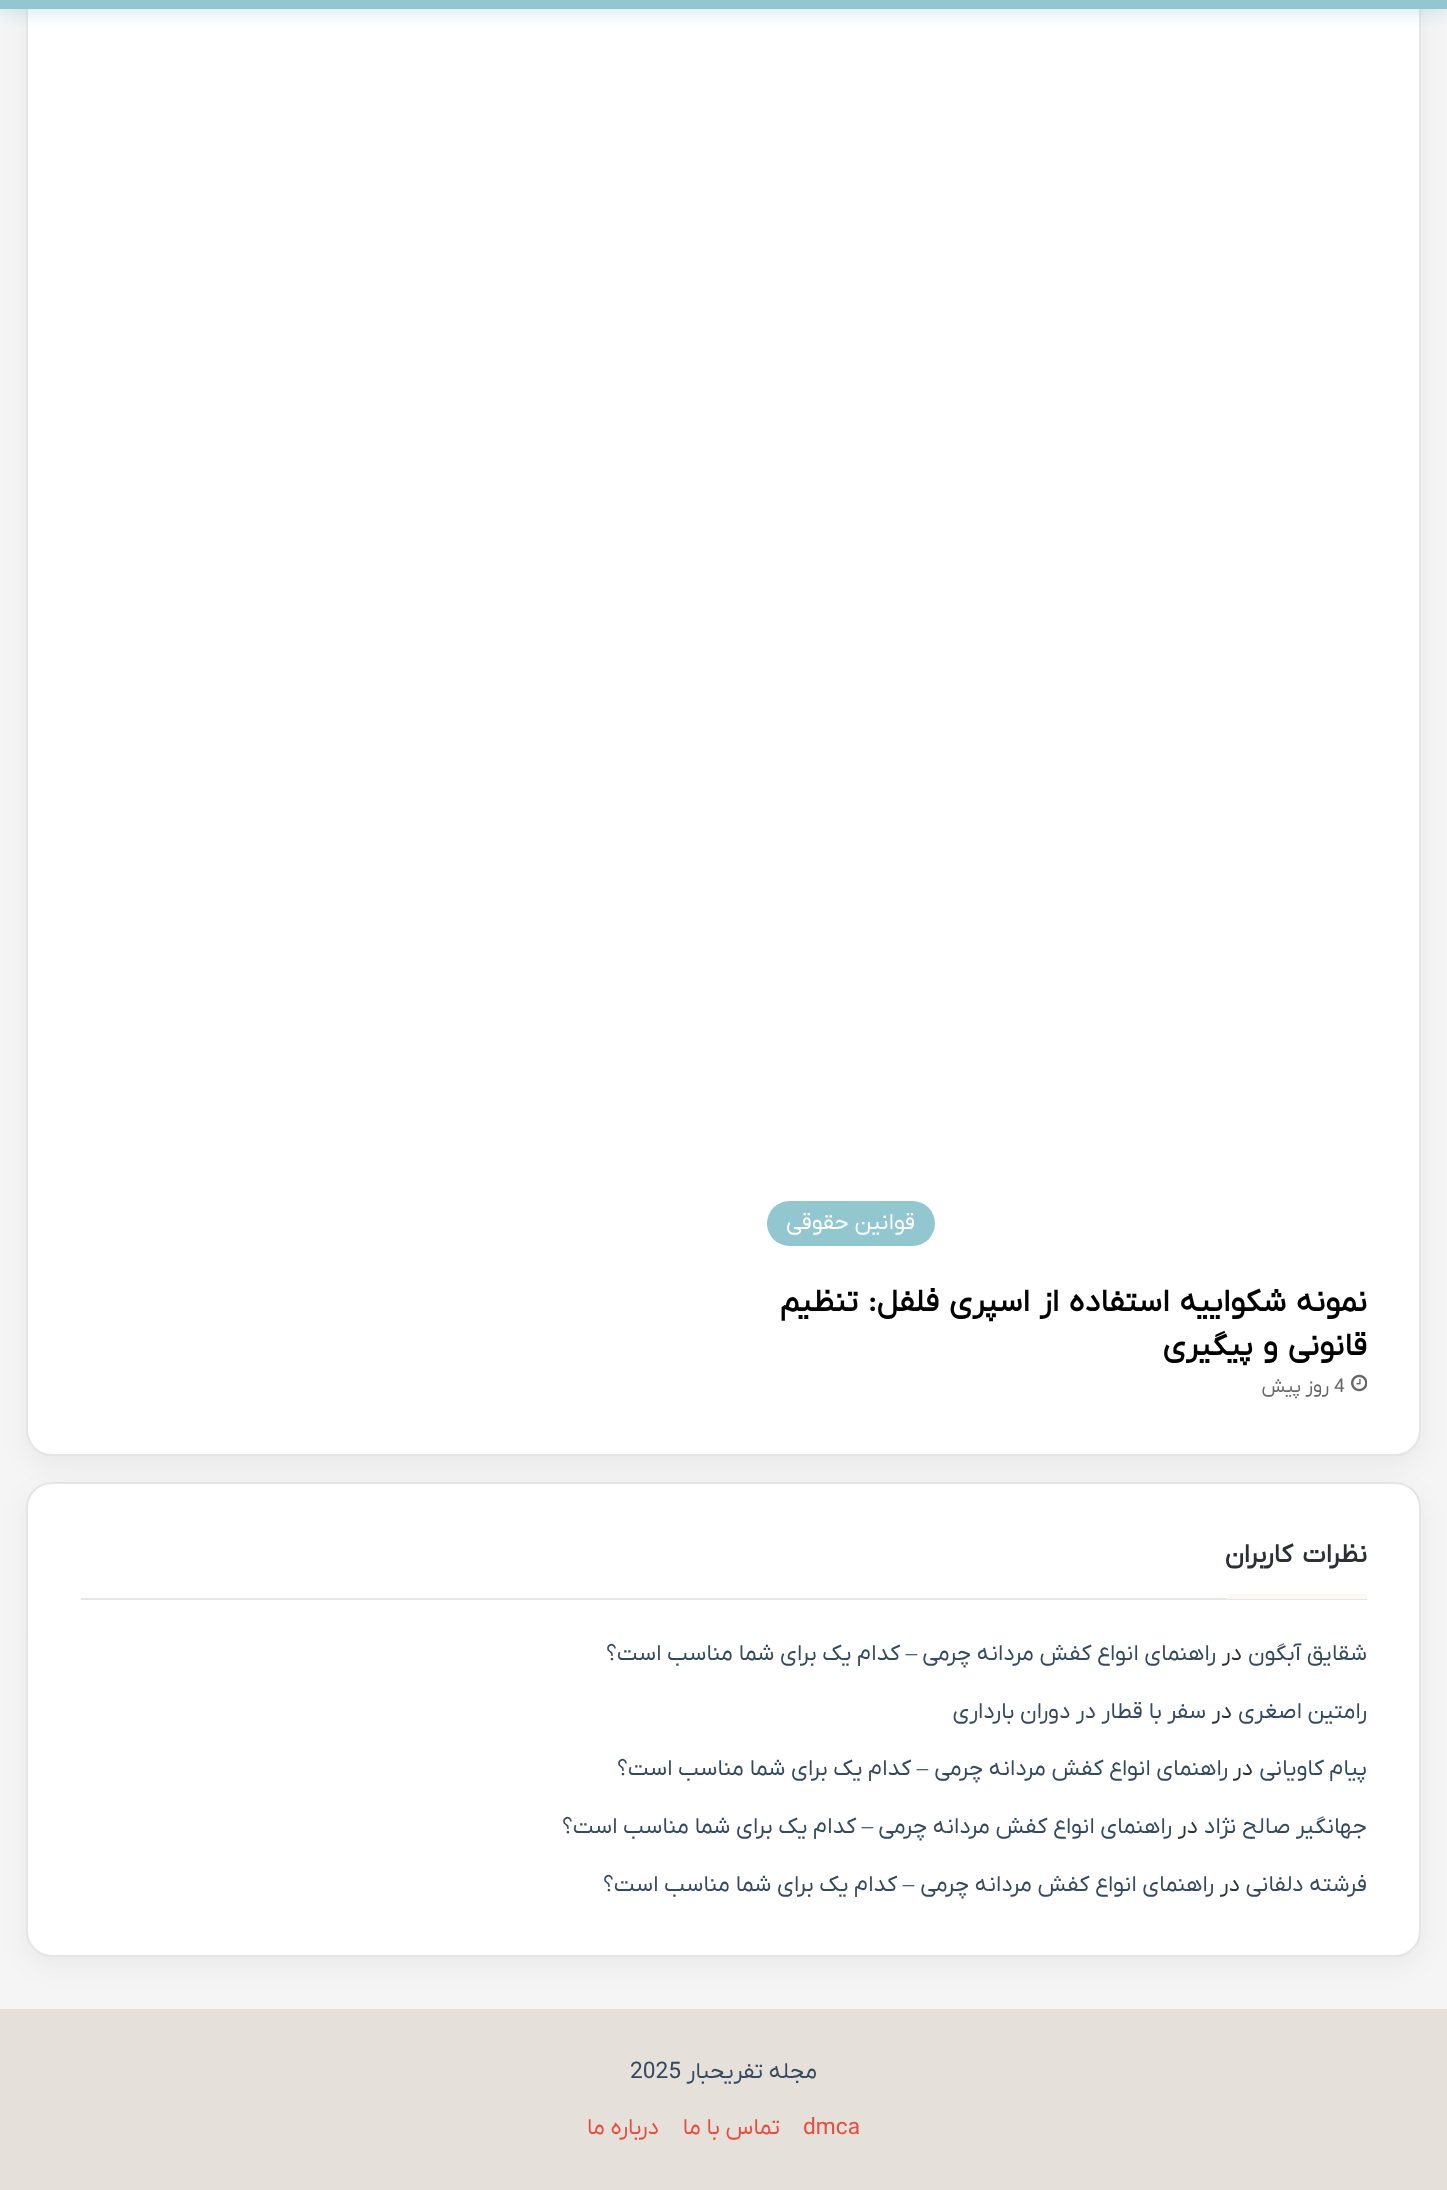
async function draw(canvas) {
  canvas.width = 1447;
  canvas.height = 2190;
  const ctx = canvas.getContext('2d');
  ctx.miterLimit = 4;
  ctx.fontKerning = 'normal';
  function label(s, x, y, font, color) {
    ctx.font = font;
    ctx.fillStyle = color;
    ctx.fillText(s, x, y);
  }
  function rect(x, y, w, h, color) {
    ctx.fillStyle = color;
    ctx.fillRect(x, y, w, h);
  }
  function roundedRect(x, y, w, h, r, color) {
    ctx.fillStyle = color;
    ctx.beginPath();
    ctx.roundRect(x, y, w, h, r);
    ctx.fill();
  }
  async function image(src, x, y, w, h) {
    const img = new Image();
    img.src = src;
    await img.decode();
    ctx.drawImage(img, x, y, w, h);
  }

  rect(0, 0, 1447, 2190, '#f5f5f5');
  ctx.fillStyle = '#0000000d';
  ctx.filter = 'blur(13px)';
  ctx.beginPath();
  ctx.roundRect(26, -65, 1395, 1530, 26);
  ctx.fill();
  ctx.filter = 'none';
  roundedRect(26, -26, 1395, 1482, 26, '#fff');
  ctx.beginPath();
  ctx.roundRect(27, -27, 1393, 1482, 25);
  ctx.strokeStyle = '#0000001a';
  ctx.lineWidth = 2;
  ctx.stroke();
  ctx.fillStyle = '#92c7cfb3';
  ctx.filter = 'blur(9px)';
  ctx.beginPath();
  ctx.rect(0, 0, 1447, 9);
  ctx.fill();
  ctx.filter = 'none';
  rect(0, 0, 1447, 9, '#92c7cf');
  roundedRect(767, 1201, 168, 45, 22.5, '#92c7cf');
  ctx.direction = 'rtl';
  label('قوانین حقوقی', 915, 1229, '22.75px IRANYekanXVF', '#fff');
  ctx.wordSpacing = '2px';
  label('نمونه شکواییه استفاده از اسپری فلفل: تنظیم', 1367, 1311, 'bold 31.5px IRANYekanXVF', '#000');
  label('قانونی و پیگیری', 1367, 1355, 'bold 31.5px IRANYekanXVF', '#000');
  await image('assets/img1.png', 1351, 1374, 16, 18);
  ctx.wordSpacing = '0px';
  ctx.direction = 'ltr';
  label('4', 1334, 1392, '19px IRANYekanXVF', '#666');
  ctx.direction = 'rtl';
  label('روز پیش', 1329, 1392, '19px IRANYekanXVF', '#666');
  ctx.fillStyle = '#0000000d';
  ctx.filter = 'blur(13px)';
  ctx.beginPath();
  ctx.roundRect(26, 1491, 1395, 474, 26);
  ctx.fill();
  ctx.filter = 'none';
  roundedRect(26, 1482, 1395, 475, 26, '#fff');
  ctx.beginPath();
  ctx.roundRect(27, 1483, 1393, 473, 25);
  ctx.stroke();
  rect(81, 1598, 1286, 2, '#e6e6e6');
  ctx.wordSpacing = '3px';
  label('نظرات کاربران', 1367, 1562, 'bold 26.25px IRANYekanXVF', '#2c2f34');
  rect(1227, 1594, 140, 5, '#fbf9f1');
  ctx.wordSpacing = '0px';
  label('شقایق آبگون', 1367, 1660, '22.75px IRANYekanXVF', '#34495e');
  label('در', 1242, 1660, '22.75px IRANYekanXVF', '#2c2f34');
  label('راهنمای انواع کفش مردانه چرمی', 1216, 1660, '22.75px IRANYekanXVF', '#34495e');
  label('–', 917, 1660, '22.75px Liberation Serif', '#34495e');
  label('کدام یک برای شما مناسب است؟', 900, 1660, '22.75px IRANYekanXVF', '#34495e');
  label('رامتین اصغری', 1367, 1718, '22.75px IRANYekanXVF', '#34495e');
  label('در', 1232, 1718, '22.75px IRANYekanXVF', '#2c2f34');
  label('سفر با قطار در دوران بارداری', 1206, 1718, '22.75px IRANYekanXVF', '#34495e');
  label('پیام کاویانی', 1367, 1775, '22.75px IRANYekanXVF', '#34495e');
  label('در', 1253, 1775, '22.75px IRANYekanXVF', '#2c2f34');
  label('راهنمای انواع کفش مردانه چرمی', 1228, 1775, '22.75px IRANYekanXVF', '#34495e');
  label('–', 928, 1775, '22.75px Liberation Serif', '#34495e');
  label('کدام یک برای شما مناسب است؟', 911, 1775, '22.75px IRANYekanXVF', '#34495e');
  label('جهانگیر صالح نژاد', 1367, 1833, '22.75px IRANYekanXVF', '#34495e');
  label('در', 1198, 1833, '22.75px IRANYekanXVF', '#2c2f34');
  label('راهنمای انواع کفش مردانه چرمی', 1172, 1833, '22.75px IRANYekanXVF', '#34495e');
  label('–', 873, 1833, '22.75px Liberation Serif', '#34495e');
  label('کدام یک برای شما مناسب است؟', 856, 1833, '22.75px IRANYekanXVF', '#34495e');
  label('فرشته دلفانی', 1367, 1891, '22.75px IRANYekanXVF', '#34495e');
  label('در', 1240, 1891, '22.75px IRANYekanXVF', '#2c2f34');
  label('راهنمای انواع کفش مردانه چرمی', 1214, 1891, '22.75px IRANYekanXVF', '#34495e');
  label('–', 914, 1891, '22.75px Liberation Serif', '#34495e');
  label('کدام یک برای شما مناسب است؟', 897, 1891, '22.75px IRANYekanXVF', '#34495e');
  rect(0, 2009, 1447, 181, '#e5e1da');
  label('مجله تفریحبار', 817, 2078, '22.75px IRANYekanXVF', '#34495e');
  ctx.direction = 'ltr';
  label('2025', 630, 2078, '22.75px IRANYekanXVF', '#34495e');
  label('dmca', 803, 2134, '22.75px IRANYekanXVF', '#e74c3c');
  ctx.direction = 'rtl';
  label('تماس با ما', 780, 2134, '22.75px IRANYekanXVF', '#e74c3c');
  label('درباره ما', 659, 2134, '22.75px IRANYekanXVF', '#e74c3c');
}

draw(document.querySelector('canvas'));
